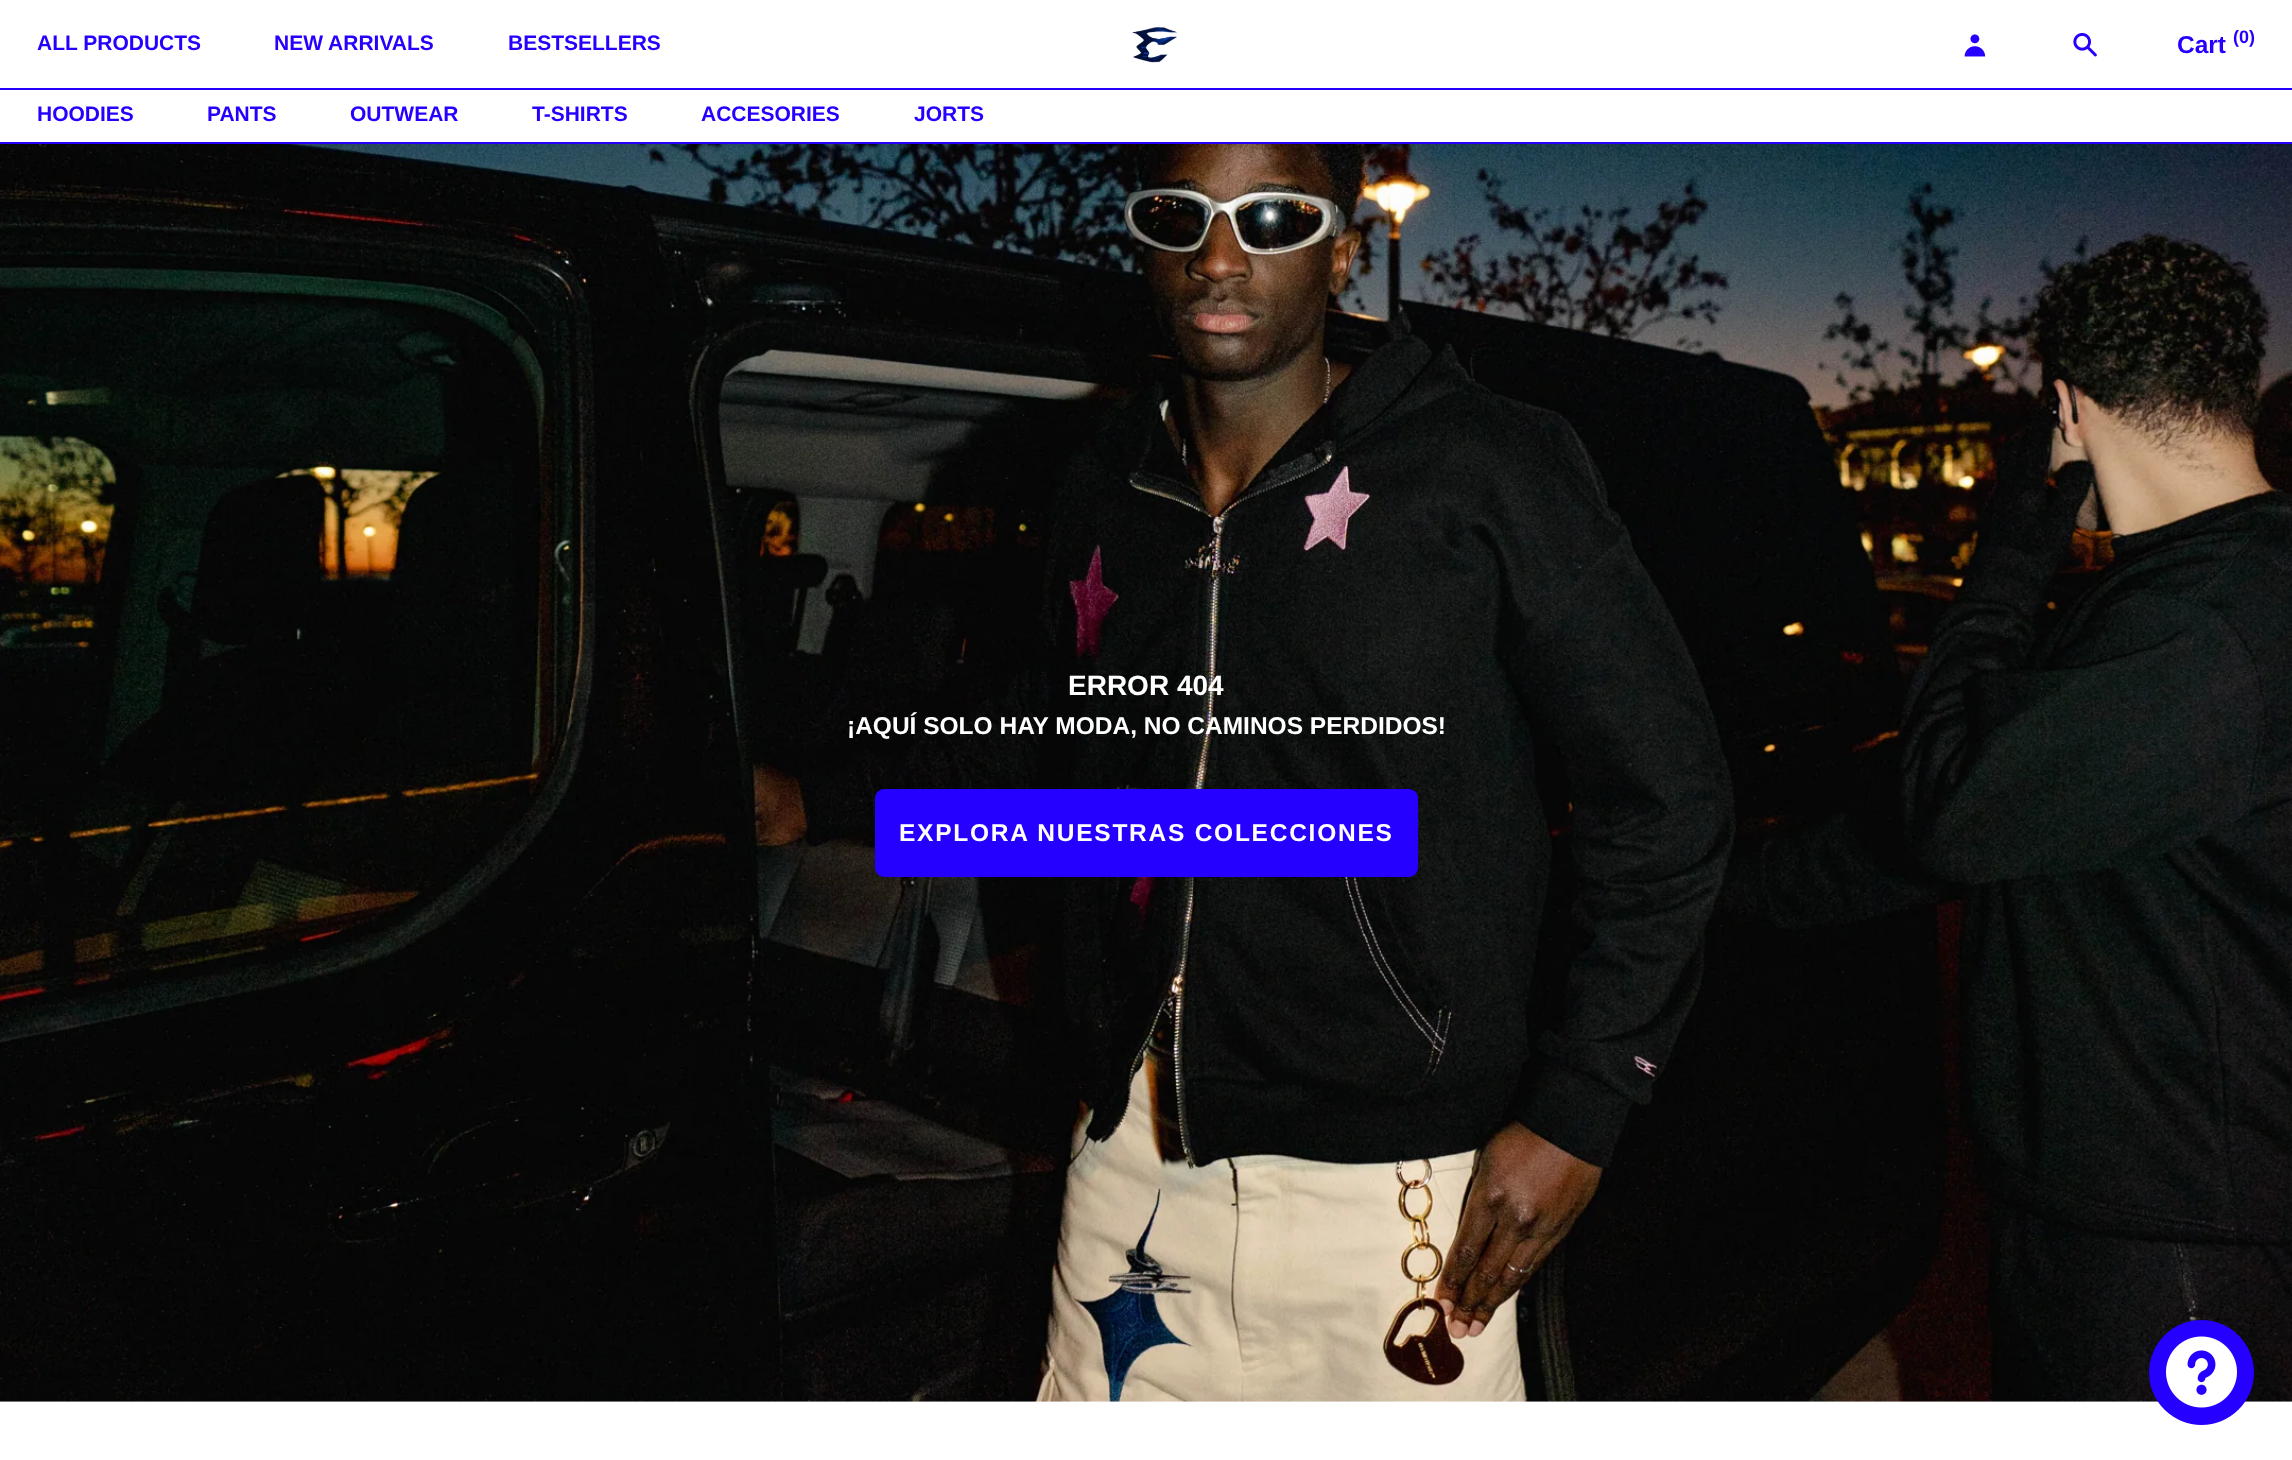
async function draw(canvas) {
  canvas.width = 2292;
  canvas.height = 1460;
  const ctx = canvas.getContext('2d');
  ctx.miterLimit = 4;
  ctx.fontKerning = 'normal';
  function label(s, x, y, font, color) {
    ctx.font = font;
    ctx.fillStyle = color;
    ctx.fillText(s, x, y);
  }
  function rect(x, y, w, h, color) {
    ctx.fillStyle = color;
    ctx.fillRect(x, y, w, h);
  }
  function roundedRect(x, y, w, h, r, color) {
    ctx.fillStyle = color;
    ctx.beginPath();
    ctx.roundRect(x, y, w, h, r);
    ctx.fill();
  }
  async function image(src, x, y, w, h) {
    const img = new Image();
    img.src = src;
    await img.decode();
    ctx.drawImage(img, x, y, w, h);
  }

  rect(0, 0, 2292, 1460, '#fff');
  rect(0, 142, 2292, 2, '#2500ff');
  label('ALL PRODUCTS', 37, 50, 'bold 21px Liberation Sans', '#2500ff');
  label('NEW ARRIVALS', 274, 50, 'bold 21px Liberation Sans', '#2500ff');
  label('BESTSELLERS', 508, 50, 'bold 21px Liberation Sans', '#2500ff');
  await image('assets/img1.png', 1132, 27, 45, 36);
  await image('assets/img2.png', 1964, 34, 22, 23);
  await image('assets/img3.png', 2073, 33, 24, 24);
  label('Cart', 2177, 53, 'bold 24.5px Liberation Sans', '#2500ff');
  label('(0)', 2233, 43, 'bold 18px Liberation Sans', '#2500ff');
  rect(0, 88, 2292, 2, '#2500ff');
  label('HOODIES', 37, 121, 'bold 21px Liberation Sans', '#2500ff');
  label('PANTS', 207, 121, 'bold 21px Liberation Sans', '#2500ff');
  label('OUTWEAR', 350, 121, 'bold 21px Liberation Sans', '#2500ff');
  label('T-SHIRTS', 532, 121, 'bold 21px Liberation Sans', '#2500ff');
  label('ACCESORIES', 701, 121, 'bold 21px Liberation Sans', '#2500ff');
  label('JORTS', 914, 121, 'bold 21px Liberation Sans', '#2500ff');
  await image('assets/img4.png', 0, 144, 2292, 1258);
  label('ERROR 404', 1068, 695, 'bold 28px Liberation Sans', '#fff');
  label('¡AQUÍ SOLO HAY MODA, NO CAMINOS PERDIDOS!', 847, 734, 'bold 24.5px Liberation Sans', '#fff');
  roundedRect(875, 789, 543, 88, 9, '#2500ff');
  ctx.letterSpacing = '1.75px';
  label('EXPLORA NUESTRAS COLECCIONES', 899, 841, 'bold 24.5px Liberation Sans', '#fff');
  ctx.fillStyle = '#2500ff';
  ctx.beginPath();
  ctx.arc(2201.5, 1372.5, 52.5, 0, 2 * Math.PI);
  ctx.fill();
  await image('assets/img5.png', 2166, 1336, 71, 72);
}

draw(document.querySelector('canvas'));
